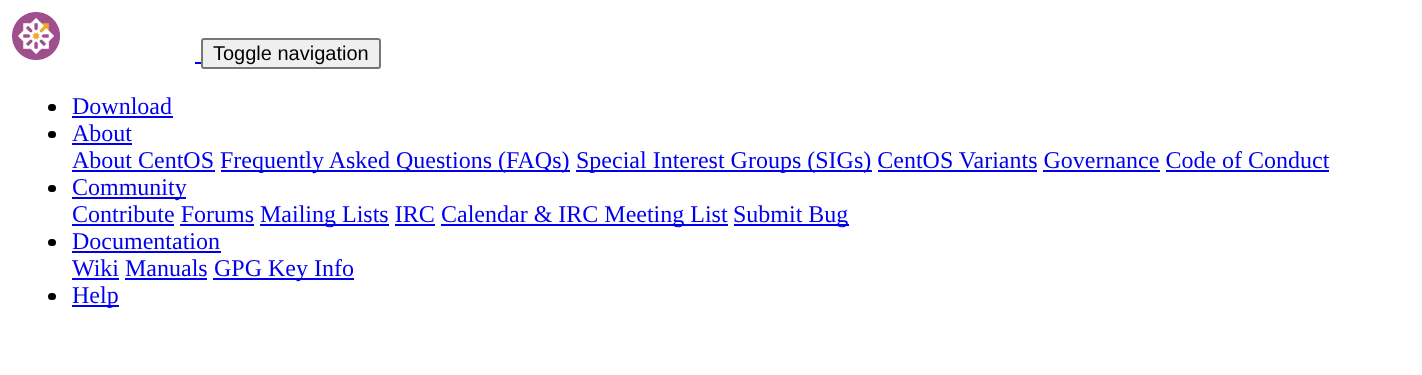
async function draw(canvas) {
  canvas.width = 1422;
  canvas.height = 375;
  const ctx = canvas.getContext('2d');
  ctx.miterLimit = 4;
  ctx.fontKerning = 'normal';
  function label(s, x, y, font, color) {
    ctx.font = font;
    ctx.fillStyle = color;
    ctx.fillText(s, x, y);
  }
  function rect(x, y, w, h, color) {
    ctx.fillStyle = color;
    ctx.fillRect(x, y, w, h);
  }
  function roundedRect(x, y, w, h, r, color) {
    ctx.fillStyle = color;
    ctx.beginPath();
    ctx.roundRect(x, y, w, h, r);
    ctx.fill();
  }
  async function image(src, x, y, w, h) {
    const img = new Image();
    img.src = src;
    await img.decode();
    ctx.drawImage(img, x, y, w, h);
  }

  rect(0, 0, 1422, 375, '#fff');
  await image('assets/img1.png', 12, 12, 48, 48);
  rect(195, 62, 6, 2, '#00e');
  ctx.fillStyle = '#efefef';
  ctx.beginPath();
  ctx.roundRect(202, 39, 178, 29, 2);
  ctx.fill();
  ctx.strokeStyle = '#767676';
  ctx.lineWidth = 2;
  ctx.stroke();
  label('Toggle navigation', 213, 60, '20px Liberation Sans', '#000');
  roundedRect(48, 104, 8, 7, 3.5, '#000');
  label('Download', 72, 114, '24px Liberation Serif', '#00e');
  rect(72, 116, 101, 2, '#00e');
  roundedRect(48, 131, 8, 7, 3.5, '#000');
  label('About', 72, 141, '24px Liberation Serif', '#00e');
  rect(72, 143, 60, 2, '#00e');
  label('About CentOS', 72, 168, '24px Liberation Serif', '#00e');
  rect(72, 170, 143, 2, '#00e');
  rect(221, 170, 349, 2, '#00e');
  label('Frequently Asked Questions (FAQs)', 220, 168, '24px Liberation Serif', '#00e');
  rect(576, 170, 296, 2, '#00e');
  label('Special Interest Groups (SIGs) CentOS Variants Governance Code of Conduct', 576, 168, '24px Liberation Serif', '#00e');
  rect(878, 170, 159, 2, '#00e');
  rect(1043, 170, 117, 2, '#00e');
  rect(1166, 170, 163, 2, '#00e');
  roundedRect(48, 185, 8, 7, 3.5, '#000');
  rect(72, 197, 114, 2, '#00e');
  label('Community', 72, 195, '24px Liberation Serif', '#00e');
  label('Contribute Forums', 72, 222, '24px Liberation Serif', '#00e');
  rect(72, 224, 102, 2, '#00e');
  rect(260, 224, 129, 2, '#00e');
  label('Mailing Lists IRC', 260, 222, '24px Liberation Serif', '#00e');
  rect(441, 224, 287, 2, '#00e');
  label('Calendar & IRC Meeting List', 441, 222, '24px Liberation Serif', '#00e');
  rect(734, 224, 115, 2, '#00e');
  label('Submit Bug', 733, 222, '24px Liberation Serif', '#00e');
  rect(180, 224, 74, 2, '#00e');
  rect(395, 224, 40, 2, '#00e');
  roundedRect(48, 239, 8, 7, 3.5, '#000');
  label('Documentation', 72, 249, '24px Liberation Serif', '#00e');
  rect(72, 251, 149, 2, '#00e');
  label('Wiki Manuals', 72, 276, '24px Liberation Serif', '#00e');
  rect(72, 278, 47, 2, '#00e');
  rect(213, 278, 141, 2, '#00e');
  label('GPG Key Info', 214, 276, '24px Liberation Serif', '#00e');
  rect(125, 278, 82, 2, '#00e');
  roundedRect(48, 293, 8, 7, 3.5, '#000');
  rect(72, 305, 47, 2, '#00e');
  label('Help', 72, 303, '24px Liberation Serif', '#00e');
}

draw(document.querySelector('canvas'));
